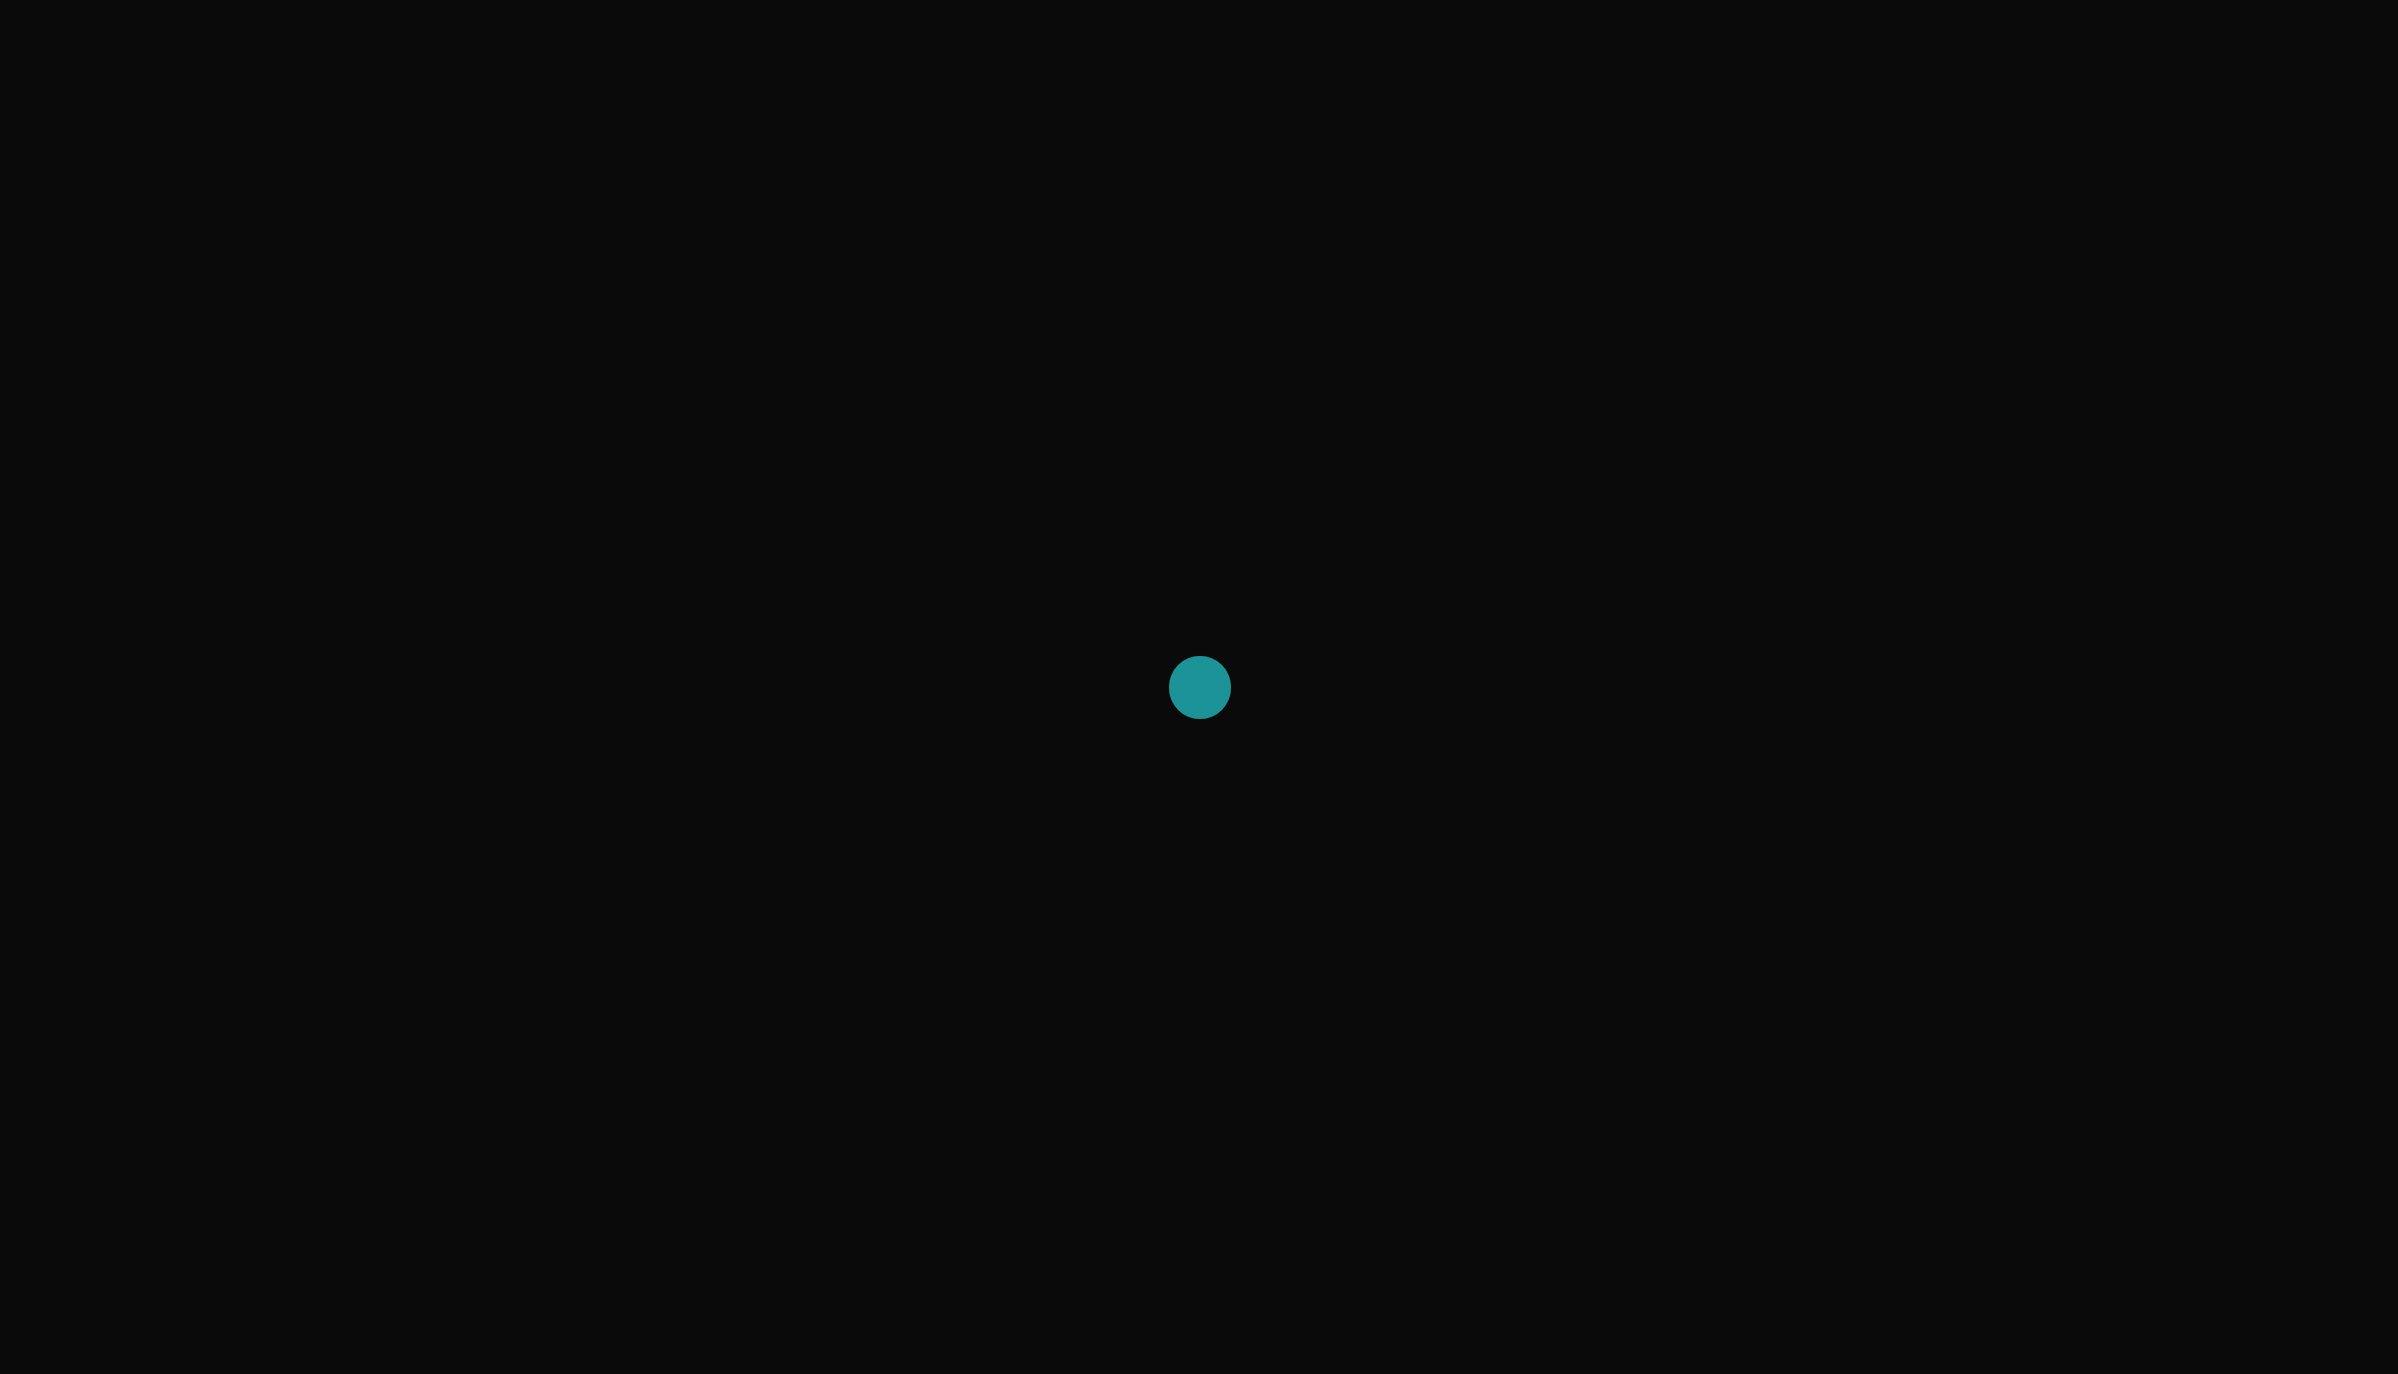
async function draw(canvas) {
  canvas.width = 2398;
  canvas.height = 1374;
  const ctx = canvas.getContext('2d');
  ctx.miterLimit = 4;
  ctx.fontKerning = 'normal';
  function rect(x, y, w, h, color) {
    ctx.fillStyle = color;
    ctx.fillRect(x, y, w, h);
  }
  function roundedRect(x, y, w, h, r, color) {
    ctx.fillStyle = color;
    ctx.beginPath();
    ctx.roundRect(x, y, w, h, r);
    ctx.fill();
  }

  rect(0, 0, 2398, 1374, '#0a0a0a');
  roundedRect(1169, 656, 62, 63, 31, '#176c6e');
  roundedRect(1169, 656, 62, 63, 31, '#20aeb199');
}

draw(document.querySelector('canvas'));
